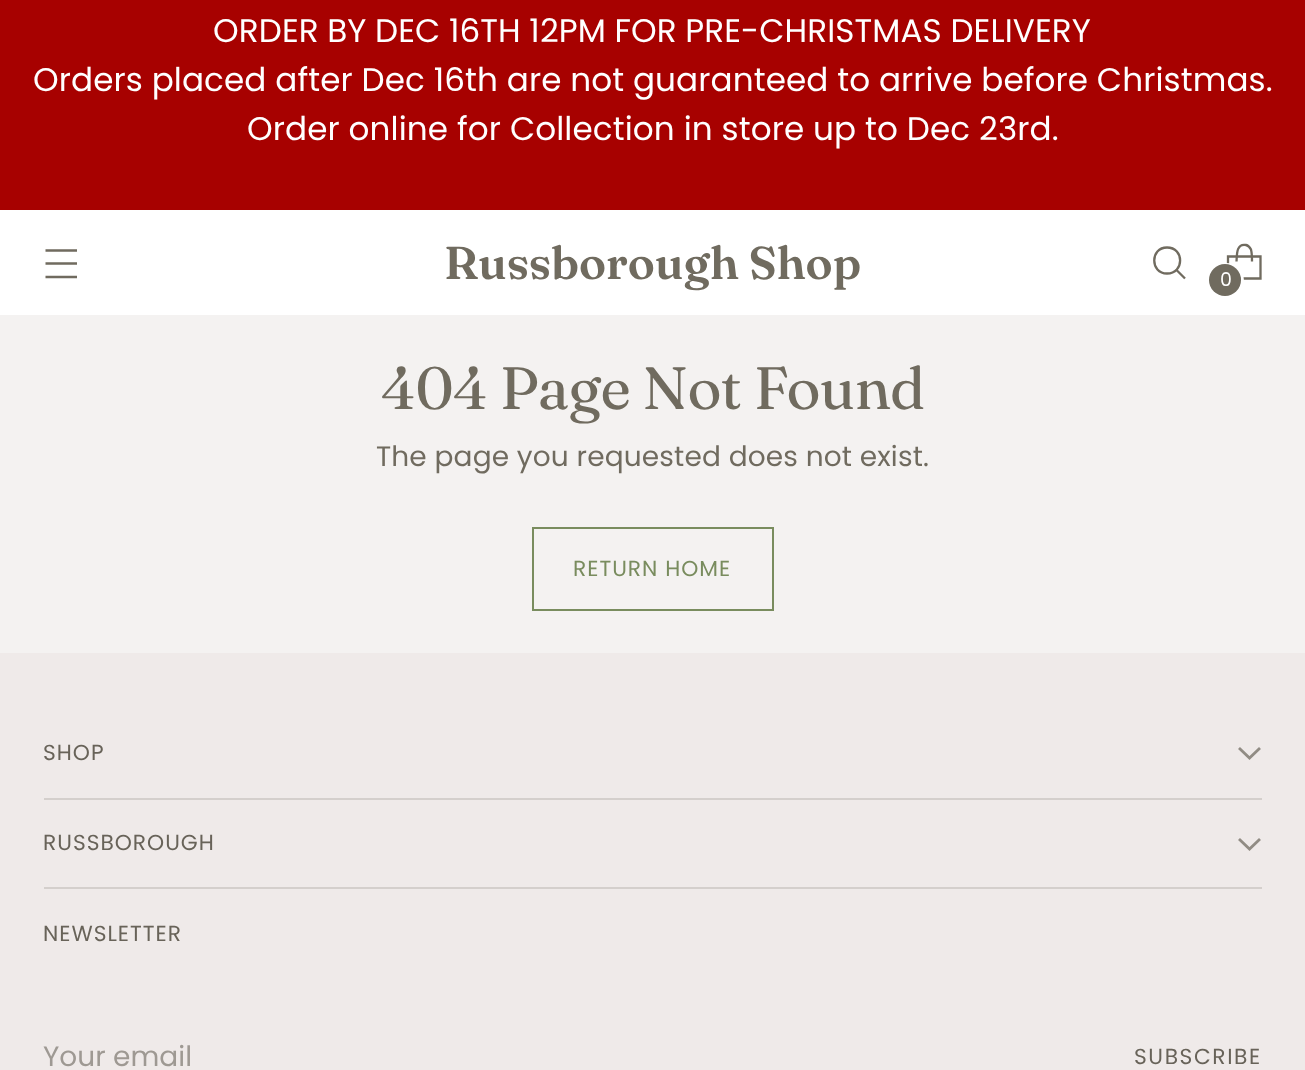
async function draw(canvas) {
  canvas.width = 1305;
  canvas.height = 1070;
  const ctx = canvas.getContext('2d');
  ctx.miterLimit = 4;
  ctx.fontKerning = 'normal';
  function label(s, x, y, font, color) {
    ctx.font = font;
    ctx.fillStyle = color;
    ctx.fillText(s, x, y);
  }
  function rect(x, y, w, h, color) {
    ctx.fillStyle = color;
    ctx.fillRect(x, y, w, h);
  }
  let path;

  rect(0, 0, 1305, 1070, '#f4f2f1');
  rect(0, 0, 1305, 210, '#a70100');
  ctx.letterSpacing = '0.1px';
  ctx.wordSpacing = '-0.25px';
  label('ORDER BY DEC 16TH 12PM FOR PRE-CHRISTMAS DELIVERY', 213, 42, '32.65px Poppins', '#fff');
  ctx.wordSpacing = '-0.1px';
  label('Orders placed after Dec 16th are not guaranteed to arrive before Christmas.', 33, 91, '32.65px Poppins', '#fff');
  ctx.wordSpacing = '0px';
  label('Order online for Collection in store up to Dec 23rd.', 247, 140, '32.65px Poppins', '#fff');
  rect(0, 210, 1305, 105, '#fff');
  path = new Path2D('M45.5 263.5H77M45.5 250.5H77M45.5 277H77');
  ctx.strokeStyle = '#706b5f';
  ctx.lineWidth = 2.3;
  ctx.stroke(path);
  ctx.letterSpacing = '0px';
  label('Russborough Shop', 444, 279, '600 46px Fraunces', '#706b5f');
  path = new Path2D('M1167 273.5C1184.5 273.5 1184.5 247.5 1167 247.5C1150 247.5 1150 273.5 1167 273.5Z');
  ctx.lineCap = 'round';
  ctx.stroke(path);
  path = new Path2D('M1176.5 270L1185 278.5');
  ctx.lineCap = 'butt';
  ctx.stroke(path);
  path = new Path2D('M1252 261.5C1252 257.5 1252 253.5 1251 249.5C1250 247.5 1248.5 245.5 1246 245C1236 243 1237 255.5 1236.5 261.5');
  ctx.lineJoin = 'bevel';
  ctx.stroke(path);
  path = new Path2D('M1260.5 278.5V256.5H1228V278.5Z');
  ctx.lineJoin = 'miter';
  ctx.stroke(path);
  ctx.beginPath();
  ctx.arc(1226, 281, 16.5, 0, 2 * Math.PI);
  ctx.strokeStyle = '#fff';
  ctx.lineWidth = 3;
  ctx.stroke();
  ctx.beginPath();
  ctx.arc(1225, 280, 16, 0, 2 * Math.PI);
  ctx.fill();
  ctx.letterSpacing = '0.15px';
  label('0', 1220, 286, '19px Poppins', '#fff');
  ctx.letterSpacing = '-0.6px';
  label('404 Page Not Found', 381, 409, '59.5px Fraunces', '#706b5f');
  ctx.letterSpacing = '0.15px';
  label('The page you requested does not exist.', 376, 466, '28px Poppins', '#706b5f');
  ctx.strokeStyle = '#798c5e';
  ctx.lineWidth = 2;
  ctx.strokeRect(533, 528, 240, 82);
  ctx.letterSpacing = '1px';
  label('RETURN HOME', 573, 576, '21.75px Poppins', '#798c5e');
  rect(0, 653, 1305, 417, '#efeae9');
  rect(44, 798, 1218, 2, '#d4cfcc');
  label('SHOP', 43, 760, '21.75px Poppins', '#686359');
  path = new Path2D('M1239 748L1249.5 758L1260 748');
  ctx.strokeStyle = '#918c84';
  ctx.lineWidth = 2.8;
  ctx.stroke(path);
  rect(44, 887, 1218, 2, '#d4cfcc');
  label('RUSSBOROUGH', 43, 850, '21.75px Poppins', '#686359');
  path = new Path2D('M1239 839L1249.5 849L1260 839');
  ctx.stroke(path);
  label('NEWSLETTER', 43, 941, '21.75px Poppins', '#686359');
  ctx.letterSpacing = '0px';
  label('Your email', 43, 1066, '28px Poppins', '#9e9993');
  ctx.letterSpacing = '1.6px';
  label('SUBSCRIBE', 1134, 1064, '21.75px Poppins', '#686359');
}

draw(document.querySelector('canvas'));
